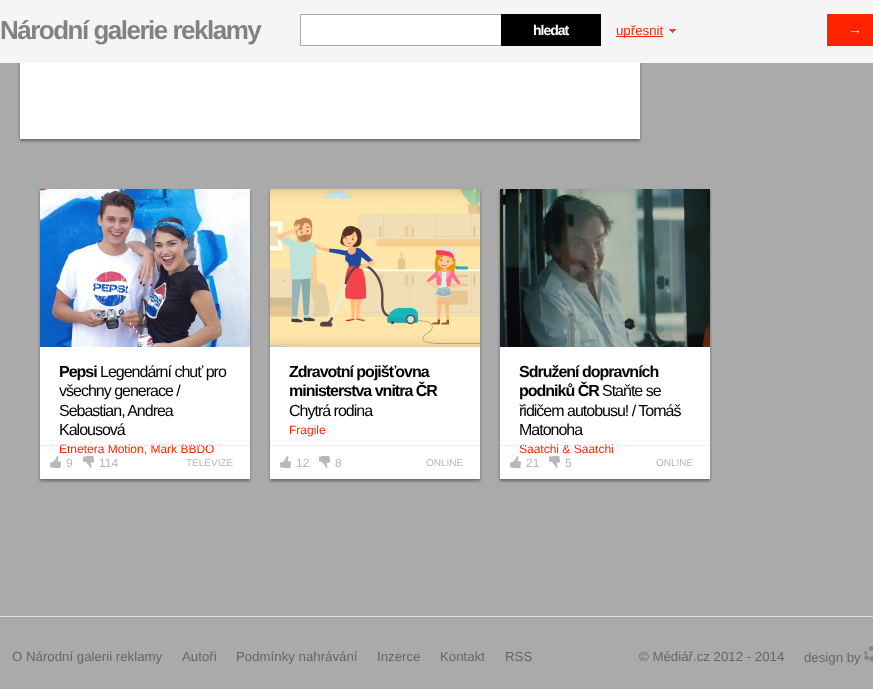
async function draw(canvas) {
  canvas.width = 873;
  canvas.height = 689;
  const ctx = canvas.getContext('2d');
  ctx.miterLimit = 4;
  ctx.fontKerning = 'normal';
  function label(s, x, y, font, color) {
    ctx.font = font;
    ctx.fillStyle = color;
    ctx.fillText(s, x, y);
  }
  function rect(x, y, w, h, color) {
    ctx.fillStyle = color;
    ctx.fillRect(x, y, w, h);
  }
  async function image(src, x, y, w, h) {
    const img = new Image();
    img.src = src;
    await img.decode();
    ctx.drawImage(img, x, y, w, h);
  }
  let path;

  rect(0, 0, 873, 689, '#aaa');
  ctx.fillStyle = '#00000066';
  ctx.filter = 'blur(1.5px)';
  ctx.beginPath();
  ctx.rect(20, -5, 620, 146);
  ctx.fill();
  ctx.filter = 'none';
  rect(0, 0, 873, 63, '#f5f5f5');
  ctx.letterSpacing = '-1.5px';
  label('Národní galerie reklamy', 0, 39, 'bold 26px Liberation Sans', '#828282');
  rect(301, 15, 200, 30, '#fff');
  ctx.strokeStyle = '#aaa';
  ctx.strokeRect(300.5, 14.5, 202, 31);
  rect(501, 14, 100, 32, '#000');
  ctx.letterSpacing = '-1px';
  label('hledat', 533, 35, 'bold 14px Liberation Sans', '#fff');
  rect(616, 36, 47, 1, '#fe2400');
  ctx.letterSpacing = '0px';
  label('upřesnit', 616, 35, '13.25px Liberation Sans', '#fe2400');
  await image('assets/img1.png', 669, 29, 7, 4);
  rect(827, 14, 46, 32, '#fe2400');
  ctx.letterSpacing = '-1px';
  label('→', 848, 34, 'bold 14px Liberation Sans', '#fff');
  rect(20, 63, 620, 76, '#fff');
  ctx.fillStyle = '#00000066';
  ctx.filter = 'blur(1.5px)';
  ctx.beginPath();
  ctx.rect(40, 191, 210, 290);
  ctx.fill();
  ctx.filter = 'none';
  rect(40, 347, 210, 132, '#fff');
  await image('assets/img2.png', 40, 189, 210, 158);
  label('Pepsi', 59, 377, 'bold 16px Liberation Sans', '#000');
  label('Legendární chuť pro', 100, 377, '16px Liberation Sans', '#000');
  label('všechny generace /', 59, 396, '16px Liberation Sans', '#000');
  label('Sebastian, Andrea', 59, 416, '16px Liberation Sans', '#000');
  label('Kalousová', 59, 435, '16px Liberation Sans', '#000');
  ctx.letterSpacing = '0px';
  label('Etnetera Motion, Mark BBDO', 59, 453, '12px Liberation Sans', '#fe2400');
  path = new Path2D('M40 445.5H250');
  ctx.strokeStyle = '#e0e0e0';
  ctx.setLineDash([1, 1]);
  ctx.stroke(path);
  await image('assets/img3.png', 50, 456, 11, 12);
  label('9', 66, 467, '12px Liberation Sans', '#b7b7b7');
  await image('assets/img4.png', 83, 456, 11, 12);
  label('114', 99, 467, '12px Liberation Sans', '#b7b7b7');
  label('TELEVIZE', 186, 466, '10px Liberation Sans', '#b7b7b7');
  ctx.fillStyle = '#00000066';
  ctx.filter = 'blur(1.5px)';
  ctx.beginPath();
  ctx.rect(270, 191, 210, 290);
  ctx.fill();
  ctx.filter = 'none';
  rect(270, 347, 210, 132, '#fff');
  await image('assets/img5.png', 270, 189, 210, 158);
  ctx.letterSpacing = '-1px';
  label('Zdravotní pojišťovna', 289, 377, 'bold 16px Liberation Sans', '#000');
  label('ministerstva vnitra ČR', 289, 396, 'bold 16px Liberation Sans', '#000');
  label('Chytrá rodina', 289, 416, '16px Liberation Sans', '#000');
  ctx.letterSpacing = '0px';
  label('Fragile', 289, 434, '12px Liberation Sans', '#fe2400');
  path = new Path2D('M270 445.5H480');
  ctx.stroke(path);
  await image('assets/img3.png', 280, 456, 11, 12);
  label('12', 296, 467, '12px Liberation Sans', '#b7b7b7');
  await image('assets/img4.png', 319, 456, 11, 12);
  label('8', 335, 467, '12px Liberation Sans', '#b7b7b7');
  label('ONLINE', 426, 466, '10px Liberation Sans', '#b7b7b7');
  ctx.fillStyle = '#00000066';
  ctx.filter = 'blur(1.5px)';
  ctx.beginPath();
  ctx.rect(500, 191, 210, 290);
  ctx.fill();
  ctx.filter = 'none';
  rect(500, 347, 210, 132, '#fff');
  await image('assets/img6.png', 500, 189, 210, 158);
  ctx.letterSpacing = '-1px';
  label('Sdružení dopravních', 519, 377, 'bold 16px Liberation Sans', '#000');
  label('podniků ČR', 519, 396, 'bold 16px Liberation Sans', '#000');
  label('Staňte se', 602, 396, '16px Liberation Sans', '#000');
  label('řidičem autobusu! / Tomáš', 519, 416, '16px Liberation Sans', '#000');
  label('Matonoha', 519, 435, '16px Liberation Sans', '#000');
  ctx.letterSpacing = '0px';
  label('Saatchi & Saatchi', 519, 453, '12px Liberation Sans', '#fe2400');
  path = new Path2D('M500 445.5H710');
  ctx.stroke(path);
  await image('assets/img3.png', 510, 456, 11, 12);
  label('21', 526, 467, '12px Liberation Sans', '#b7b7b7');
  await image('assets/img4.png', 549, 456, 11, 12);
  label('5', 565, 467, '12px Liberation Sans', '#b7b7b7');
  label('ONLINE', 656, 466, '10px Liberation Sans', '#b7b7b7');
  rect(0, 616, 873, 1, '#d8dfea');
  label('O Národní galerii reklamy', 12, 661, '13.25px Liberation Sans', '#666');
  label('Autoři', 182, 661, '13.25px Liberation Sans', '#666');
  label('Podmínky nahrávání', 236, 661, '13.25px Liberation Sans', '#666');
  label('Inzerce', 377, 661, '13.25px Liberation Sans', '#666');
  label('Kontakt', 440, 661, '13.25px Liberation Sans', '#666');
  label('RSS', 505, 661, '13.25px Liberation Sans', '#666');
  label('© Médiář.cz 2012 - 2014', 639, 661, '13.25px Liberation Sans', '#666');
  label('design by', 804, 662, '13.25px Liberation Sans', '#666');
  await image('assets/img7.png', 864, 646, 9, 16);
}

draw(document.querySelector('canvas'));
